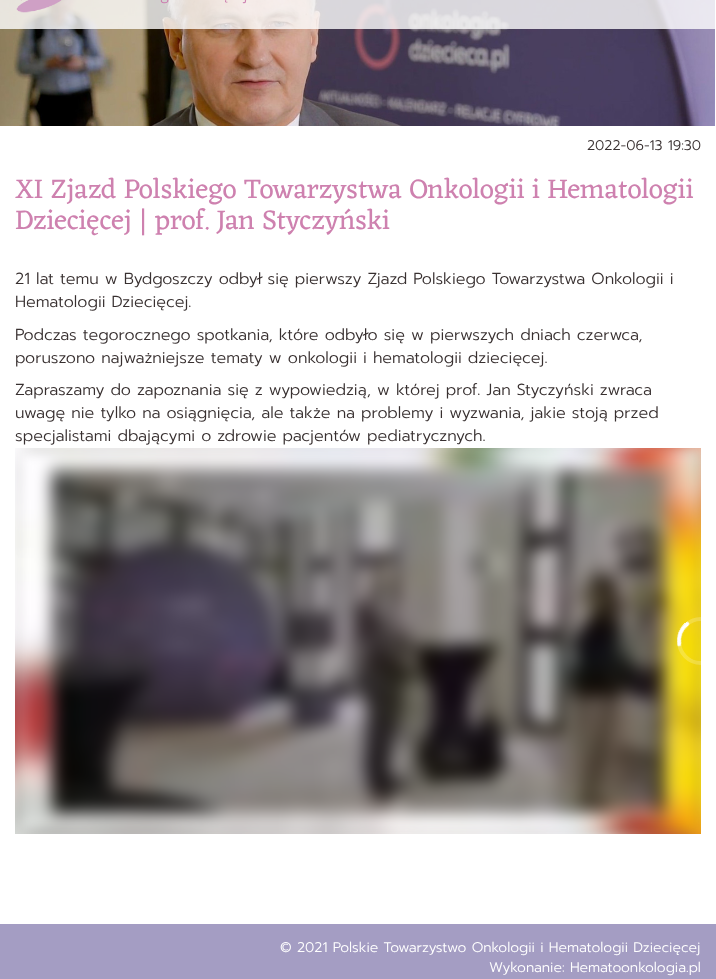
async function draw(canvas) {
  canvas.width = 716;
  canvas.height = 979;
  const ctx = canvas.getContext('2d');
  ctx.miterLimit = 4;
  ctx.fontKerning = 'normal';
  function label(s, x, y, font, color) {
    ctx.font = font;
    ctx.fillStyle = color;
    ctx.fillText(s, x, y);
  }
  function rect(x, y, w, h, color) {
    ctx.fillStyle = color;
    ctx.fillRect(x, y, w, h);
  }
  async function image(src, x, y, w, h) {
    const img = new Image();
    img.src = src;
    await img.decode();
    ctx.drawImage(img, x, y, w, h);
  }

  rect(0, 0, 716, 979, '#fff');
  await image('assets/img2.png', 0, 0, 716, 126);
  rect(0, 0, 716, 29, '#ffffffcc');
  await image('assets/img1.png', 16, 0, 231, 13);
  label('2022-06-13 19:30', 587, 150, '300 14px Prompt', '#383030');
  label('XI Zjazd Polskiego Towarzystwa Onkologii i Hematologii', 15, 198, '28px Eczar', '#ce81af');
  label('Dziecięcej | prof. Jan Styczyński', 15, 229, '28px Eczar', '#ce81af');
  label('21 lat temu w Bydgoszczy odbył się pierwszy Zjazd Polskiego Towarzystwa Onkologii i', 15, 284, '300 16px Prompt', '#383030');
  label('Hematologii Dziecięcej.', 15, 307, '300 16px Prompt', '#383030');
  label('Podczas tegorocznego spotkania, które odbyło się w pierwszych dniach czerwca,', 15, 340, '300 16px Prompt', '#383030');
  label('poruszono najważniejsze tematy w onkologii i hematologii dziecięcej.', 15, 363, '300 16px Prompt', '#383030');
  label('Zapraszamy do zapoznania się z wypowiedzią, w której prof. Jan Styczyński zwraca', 15, 395, '300 16px Prompt', '#383030');
  label('uwagę nie tylko na osiągnięcia, ale także na problemy i wyzwania, jakie stoją przed', 15, 418, '300 16px Prompt', '#383030');
  label('specjalistami dbającymi o zdrowie pacjentów pediatrycznych.', 15, 441, '300 16px Prompt', '#383030');
  await image('assets/img3.png', 15, 448, 686, 386);
  rect(0, 924, 716, 55, '#a49dc3');
  label('© 2021 Polskie Towarzystwo Onkologii i Hematologii Dziecięcej', 280, 952, '300 14px Prompt', '#fff');
  label('Wykonanie: Hematoonkologia.pl', 489, 972, '300 14px Prompt', '#fff');
}

draw(document.querySelector('canvas'));
